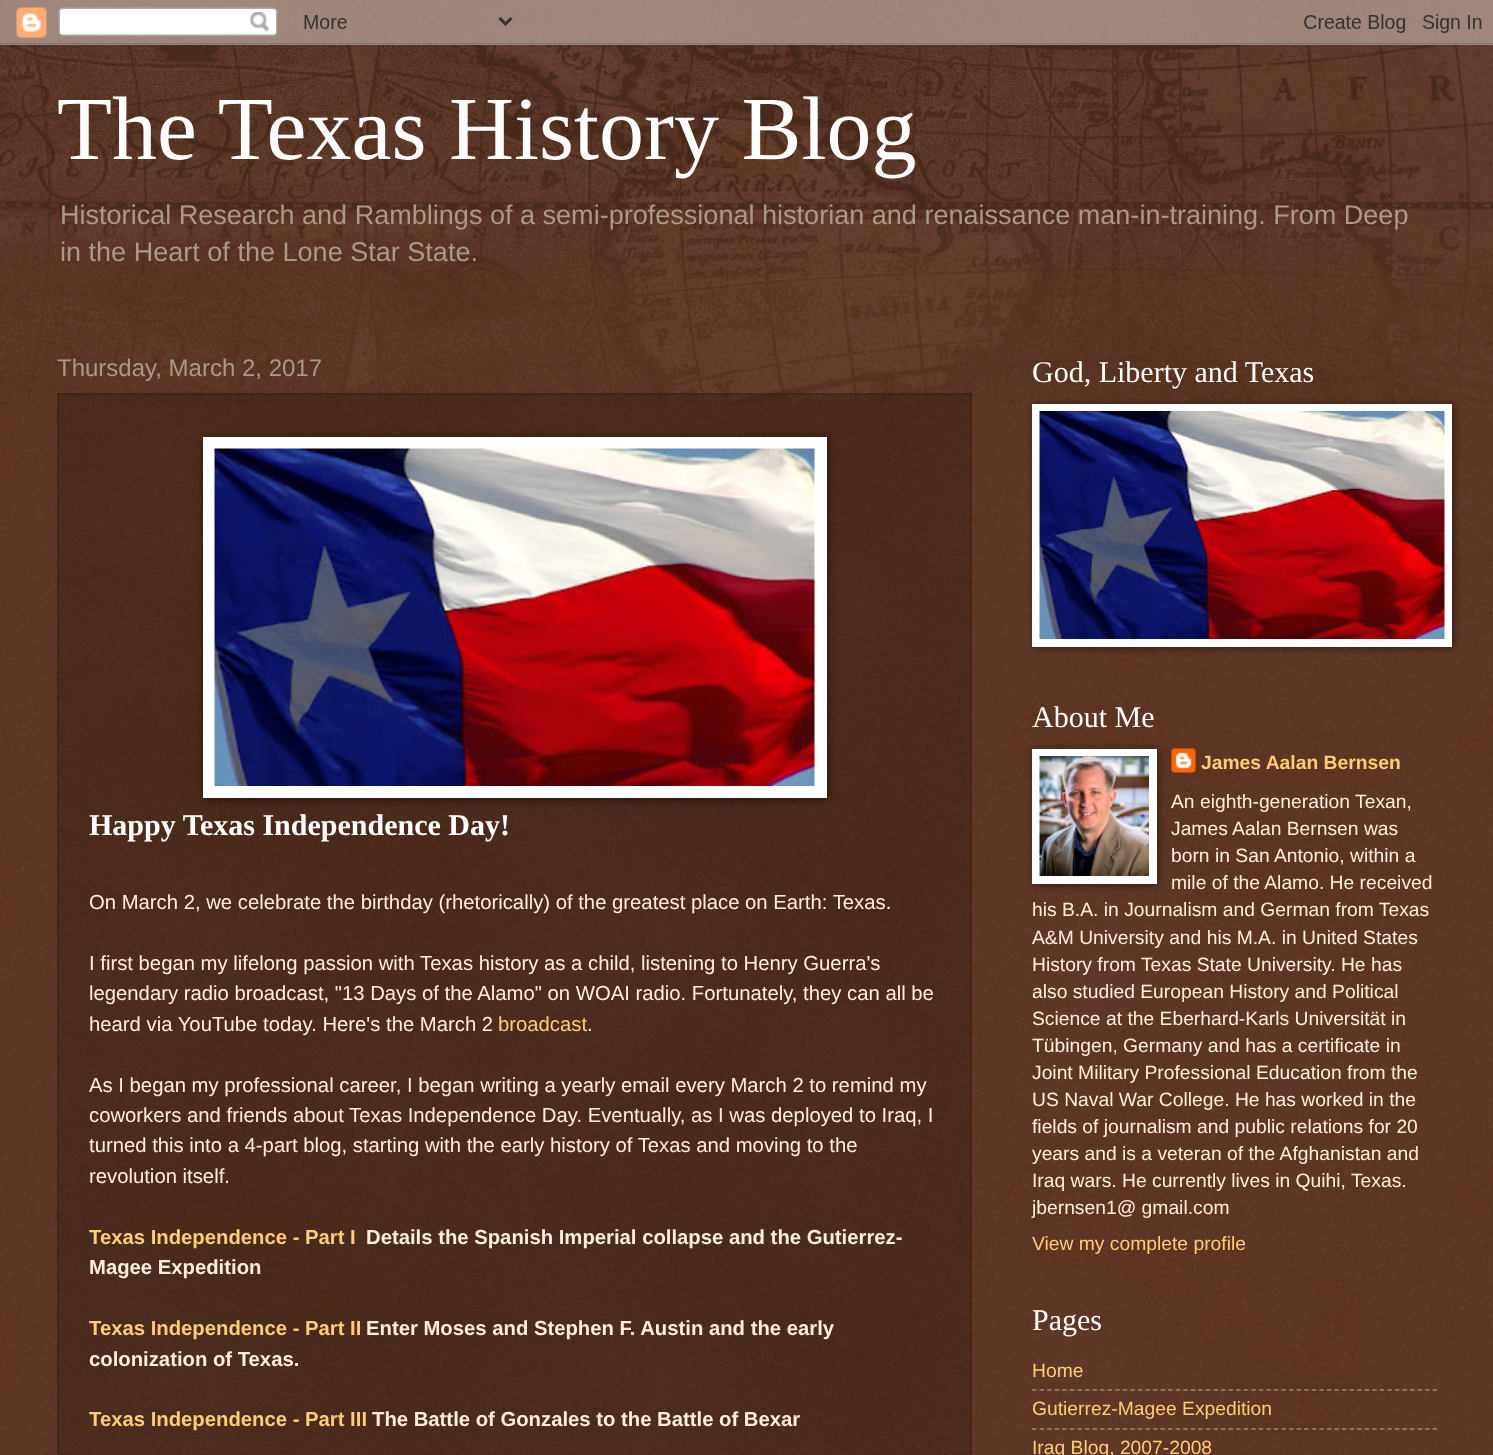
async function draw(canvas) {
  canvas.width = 1493;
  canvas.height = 1455;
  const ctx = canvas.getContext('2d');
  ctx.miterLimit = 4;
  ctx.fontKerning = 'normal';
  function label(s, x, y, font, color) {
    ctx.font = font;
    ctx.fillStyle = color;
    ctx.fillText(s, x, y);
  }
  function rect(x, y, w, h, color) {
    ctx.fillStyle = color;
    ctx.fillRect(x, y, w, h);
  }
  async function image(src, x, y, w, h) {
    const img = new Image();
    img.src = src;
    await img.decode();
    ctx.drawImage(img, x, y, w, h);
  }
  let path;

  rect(0, 0, 1493, 1455, '#441500');
  await image('assets/img1.png', 0, 0, 1493, 1455);
  await image('assets/img2.png', 0, 0, 1493, 45);
  await image('assets/img3.png', 0, 45, 1493, 360);
  label('The Texas History Blog', 57, 159, '90px Liberation Serif', '#fff');
  label('Historical Research and Ramblings of a semi-professional historian and renaissance man-in-training. From Deep', 60, 224, '27.05px Liberation Sans', '#a98');
  label('in the Heart of the Lone Star State.', 60, 261, '27.05px Liberation Sans', '#a98');
  label('Thursday, March 2, 2017', 57, 376, '24px Liberation Sans', '#a98');
  rect(57, 393, 915, 1062, '#00000033');
  path = new Path2D('M57 394H972');
  ctx.strokeStyle = '#321';
  ctx.lineWidth = 1.5;
  ctx.setLineDash([1.5, 1.5]);
  ctx.stroke(path);
  path = new Path2D('M971 393V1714.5');
  ctx.stroke(path);
  path = new Path2D('M58 393V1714.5');
  ctx.stroke(path);
  ctx.fillStyle = '#00000080';
  ctx.filter = 'blur(4px)';
  ctx.beginPath();
  ctx.rect(204, 438, 624, 362);
  ctx.fill();
  ctx.filter = 'none';
  rect(203, 437, 624, 361, '#fff');
  await image('assets/img4.png', 214, 448, 601, 338);
  label('Happy Texas Independence Day!', 89, 835, 'bold 30px Liberation Serif', '#fff');
  label('On March 2, we celebrate the birthday (rhetorically) of the greatest place on Earth: Texas.', 89, 909, '20.3px Liberation Sans', '#fed');
  label('I first began my lifelong passion with Texas history as a child, listening to Henry Guerra\'s', 89, 970, '20.3px Liberation Sans', '#fed');
  label('legendary radio broadcast, "13 Days of the Alamo" on WOAI radio. Fortunately, they can all be', 89, 1000, '20.3px Liberation Sans', '#fed');
  label('heard via YouTube today. Here\'s the March 2', 89, 1031, '20.3px Liberation Sans', '#fed');
  label('broadcast', 498, 1031, '20.3px Liberation Sans', '#fc7');
  label('.', 587, 1031, '20.3px Liberation Sans', '#fed');
  label('As I began my professional career, I began writing a yearly email every March 2 to remind my', 89, 1092, '20.3px Liberation Sans', '#fed');
  label('coworkers and friends about Texas Independence Day. Eventually, as I was deployed to Iraq, I', 89, 1122, '20.3px Liberation Sans', '#fed');
  label('turned this into a 4-part blog, starting with the early history of Texas and moving to the', 89, 1152, '20.3px Liberation Sans', '#fed');
  label('revolution itself.', 89, 1183, '20.3px Liberation Sans', '#fed');
  label('Texas Independence - Part I', 89, 1244, 'bold 20.3px Liberation Sans', '#fc7');
  label('Details the Spanish Imperial collapse and the Gutierrez-', 366, 1244, 'bold 20.3px Liberation Sans', '#fed');
  label('Magee Expedition', 89, 1274, 'bold 20.3px Liberation Sans', '#fed');
  label('Texas Independence - Part II', 89, 1335, 'bold 20.3px Liberation Sans', '#fc7');
  label('Enter Moses and Stephen F. Austin and the early', 366, 1335, 'bold 20.3px Liberation Sans', '#fed');
  label('colonization of Texas.', 89, 1366, 'bold 20.3px Liberation Sans', '#fed');
  label('Texas Independence - Part III', 89, 1426, 'bold 20.3px Liberation Sans', '#fc7');
  label('The Battle of Gonzales to the Battle of Bexar', 372, 1426, 'bold 20.3px Liberation Sans', '#fed');
  label('God, Liberty and Texas', 1032, 382, '30px Liberation Serif', '#fff');
  ctx.fillStyle = '#00000080';
  ctx.filter = 'blur(4px)';
  ctx.beginPath();
  ctx.rect(1034, 405, 420, 243);
  ctx.fill();
  ctx.filter = 'none';
  rect(1032, 404, 420, 243, '#fff');
  await image('assets/img5.png', 1039, 411, 406, 228);
  label('About Me', 1032, 727, '30px Liberation Serif', '#fff');
  ctx.fillStyle = '#00000080';
  ctx.filter = 'blur(4px)';
  ctx.beginPath();
  ctx.rect(1034, 750, 124, 135);
  ctx.fill();
  ctx.filter = 'none';
  rect(1032, 749, 125, 135, '#fff');
  await image('assets/img6.png', 1039, 756, 110, 120);
  await image('assets/img7.png', 1171, 748, 25, 25);
  label('James Aalan Bernsen', 1201, 769, 'bold 19.3px Liberation Sans', '#fc7');
  label('An eighth-generation Texan,', 1171, 808, '19.3px Liberation Sans', '#fed');
  label('James Aalan Bernsen was', 1171, 835, '19.3px Liberation Sans', '#fed');
  label('born in San Antonio, within a', 1171, 862, '19.3px Liberation Sans', '#fed');
  label('mile of the Alamo. He received', 1171, 889, '19.3px Liberation Sans', '#fed');
  label('his B.A. in Journalism and German from Texas', 1032, 916, '19.3px Liberation Sans', '#fed');
  label('A&M University and his M.A. in United States', 1032, 944, '19.3px Liberation Sans', '#fed');
  label('History from Texas State University. He has', 1032, 971, '19.3px Liberation Sans', '#fed');
  label('also studied European History and Political', 1032, 998, '19.3px Liberation Sans', '#fed');
  label('Science at the Eberhard-Karls Universität in', 1032, 1025, '19.3px Liberation Sans', '#fed');
  label('Tübingen, Germany and has a certificate in', 1032, 1052, '19.3px Liberation Sans', '#fed');
  label('Joint Military Professional Education from the', 1032, 1079, '19.3px Liberation Sans', '#fed');
  label('US Naval War College. He has worked in the', 1032, 1106, '19.3px Liberation Sans', '#fed');
  label('fields of journalism and public relations for 20', 1032, 1133, '19.3px Liberation Sans', '#fed');
  label('years and is a veteran of the Afghanistan and', 1032, 1160, '19.3px Liberation Sans', '#fed');
  label('Iraq wars. He currently lives in Quihi, Texas.', 1032, 1187, '19.3px Liberation Sans', '#fed');
  label('jbernsen1@ gmail.com', 1032, 1214, '19.3px Liberation Sans', '#fed');
  label('View my complete profile', 1032, 1250, '19.3px Liberation Sans', '#fc7');
  label('Pages', 1032, 1330, '30px Liberation Serif', '#fff');
  label('Home', 1032, 1377, '19.3px Liberation Sans', '#fc7');
  path = new Path2D('M1032 1390H1437');
  ctx.strokeStyle = '#987';
  ctx.setLineDash([4.5, 3.06]);
  ctx.stroke(path);
  label('Gutierrez-Magee Expedition', 1032, 1415, '19.3px Liberation Sans', '#fc7');
  path = new Path2D('M1032 1429H1437');
  ctx.stroke(path);
  label('Iraq Blog, 2007-2008', 1032, 1454, '19.3px Liberation Sans', '#fc7');
}

draw(document.querySelector('canvas'));
